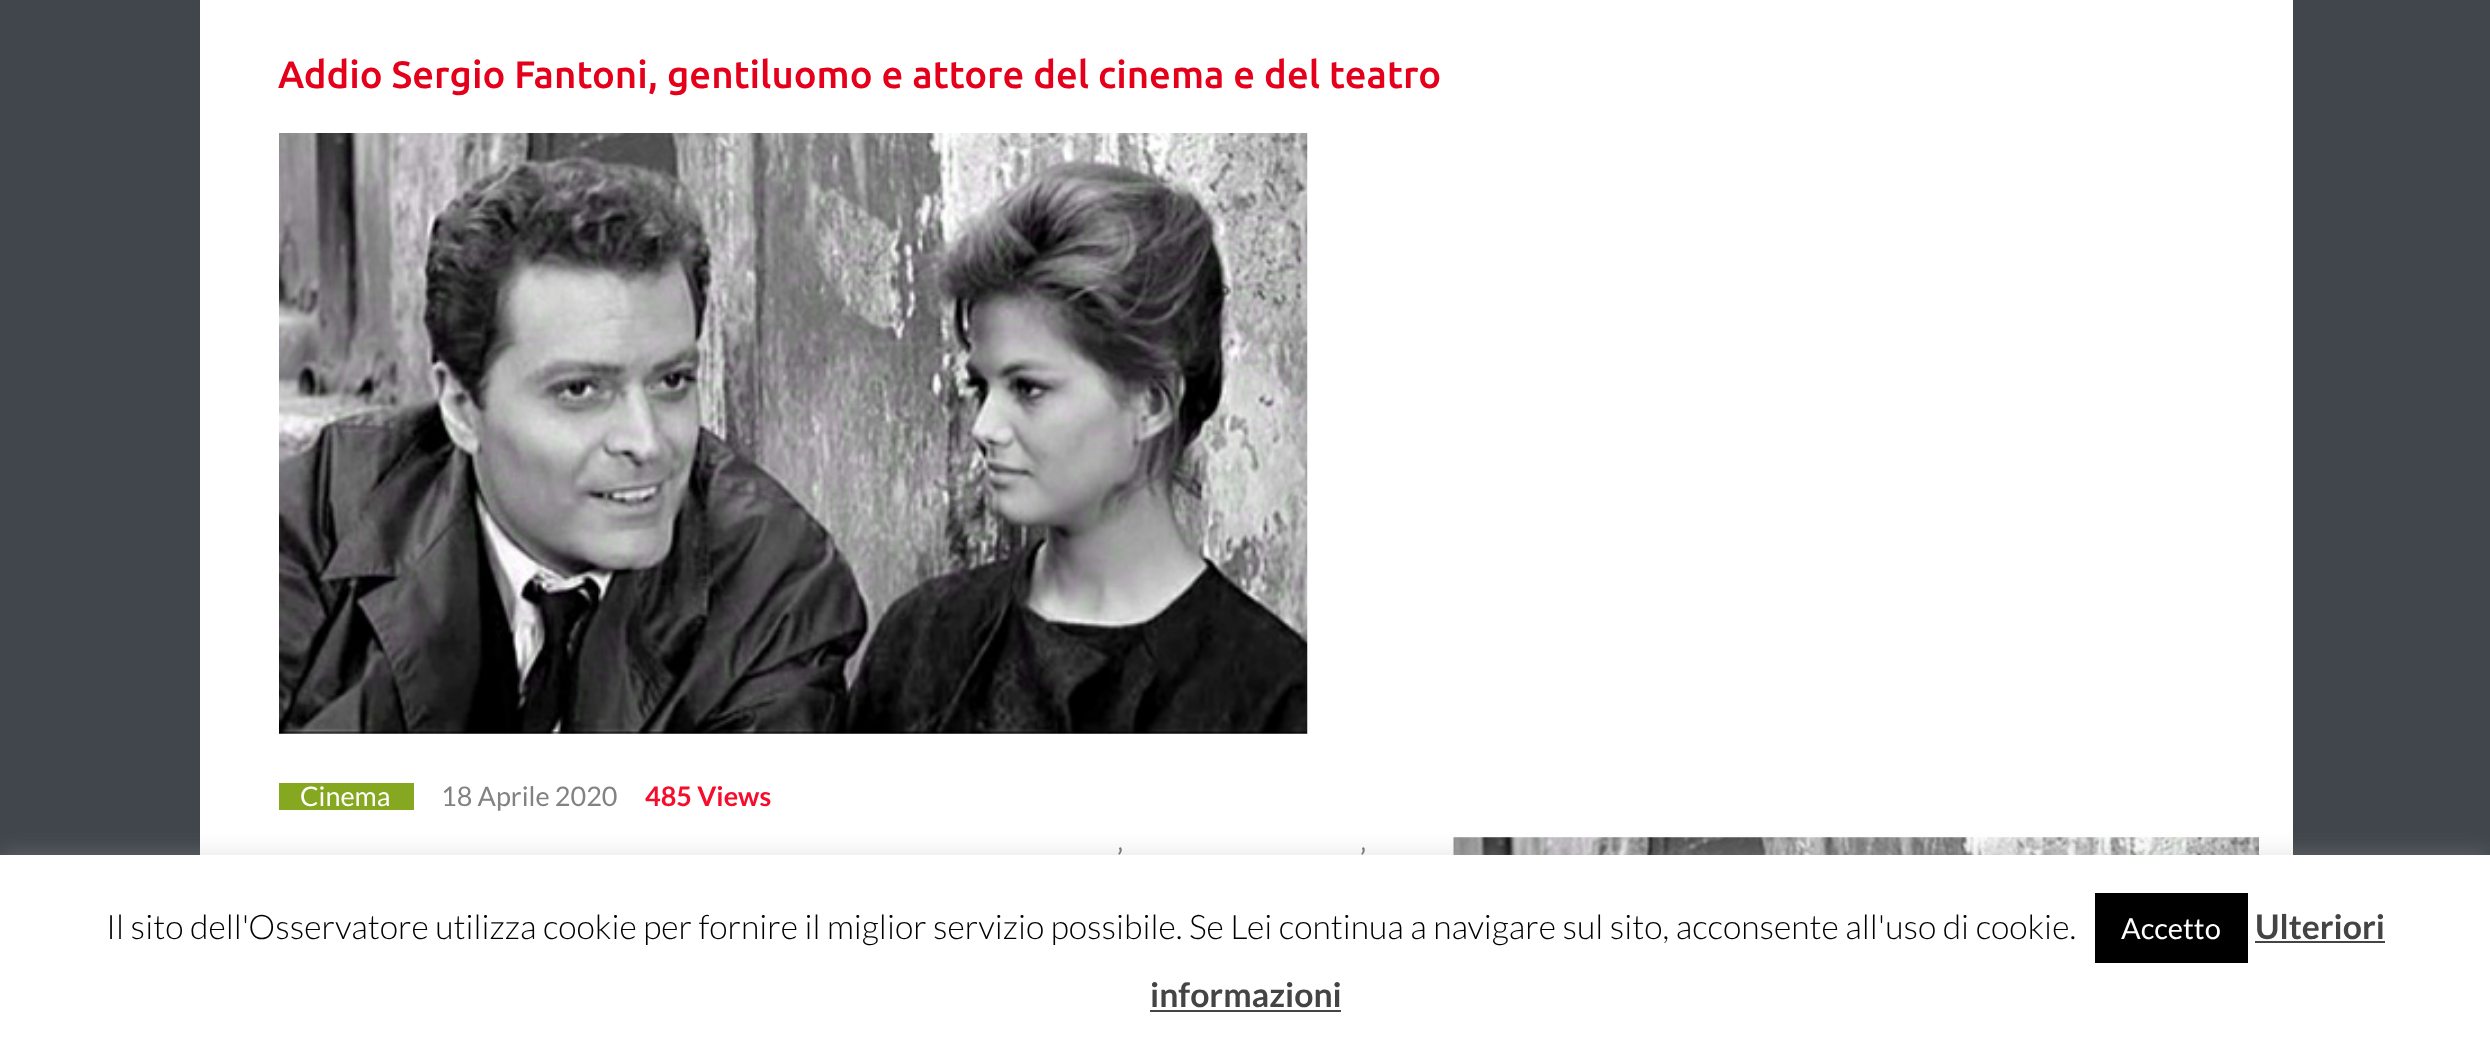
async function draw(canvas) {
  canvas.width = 2490;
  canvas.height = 1045;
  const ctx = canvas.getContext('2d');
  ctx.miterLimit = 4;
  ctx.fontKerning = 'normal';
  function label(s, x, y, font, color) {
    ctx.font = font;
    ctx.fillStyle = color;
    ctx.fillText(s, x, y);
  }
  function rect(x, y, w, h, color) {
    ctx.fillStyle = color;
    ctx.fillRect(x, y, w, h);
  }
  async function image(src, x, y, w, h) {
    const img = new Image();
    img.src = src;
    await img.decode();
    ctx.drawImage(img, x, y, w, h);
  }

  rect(0, 0, 2490, 1045, '#41464c');
  rect(200, 0, 2093, 855, '#fff');
  label('Addio Sergio Fantoni, gentiluomo e attore del cinema e del teatro', 278, 88, '500 38.25px Ubuntu', '#e4001b');
  await image('assets/img1.png', 279, 133, 1029, 601);
  rect(279, 783, 135, 27, '#86a821');
  label('Cinema', 300, 806, '27px Lato', '#fff');
  label('18 Aprile 2020', 441, 806, '27px Lato', '#828282');
  label('485 Views', 645, 806, 'bold 27px Lato', '#f60d2b');
  label('’', 1117, 869, '29px Lato', '#717070');
  label('’', 1360, 869, '29px Lato', '#717070');
  await image('assets/img2.png', 1453, 837, 806, 18);
  ctx.fillStyle = '#acabab4d';
  ctx.filter = 'blur(11px)';
  ctx.beginPath();
  ctx.rect(0, 853, 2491, 191);
  ctx.fill();
  ctx.filter = 'none';
  rect(0, 855, 2490, 190, '#fff');
  label('Il sito dell\'Osservatore utilizza cookie per fornire il miglior servizio possibile. Se Lei continua a navigare sul sito, acconsente all\'uso di cookie.', 106, 939, '300 33.75px Lato', '#000');
  rect(2095, 893, 153, 70, '#000');
  label('Accetto', 2121, 939, '29px Lato', '#fff');
  label('Ulteriori', 2255, 939, 'bold 33.75px Lato', '#444');
  rect(2255, 941, 130, 2, '#444');
  label('informazioni', 1150, 1007, 'bold 33.75px Lato', '#444');
  rect(1150, 1010, 191, 2, '#444');
}

draw(document.querySelector('canvas'));
